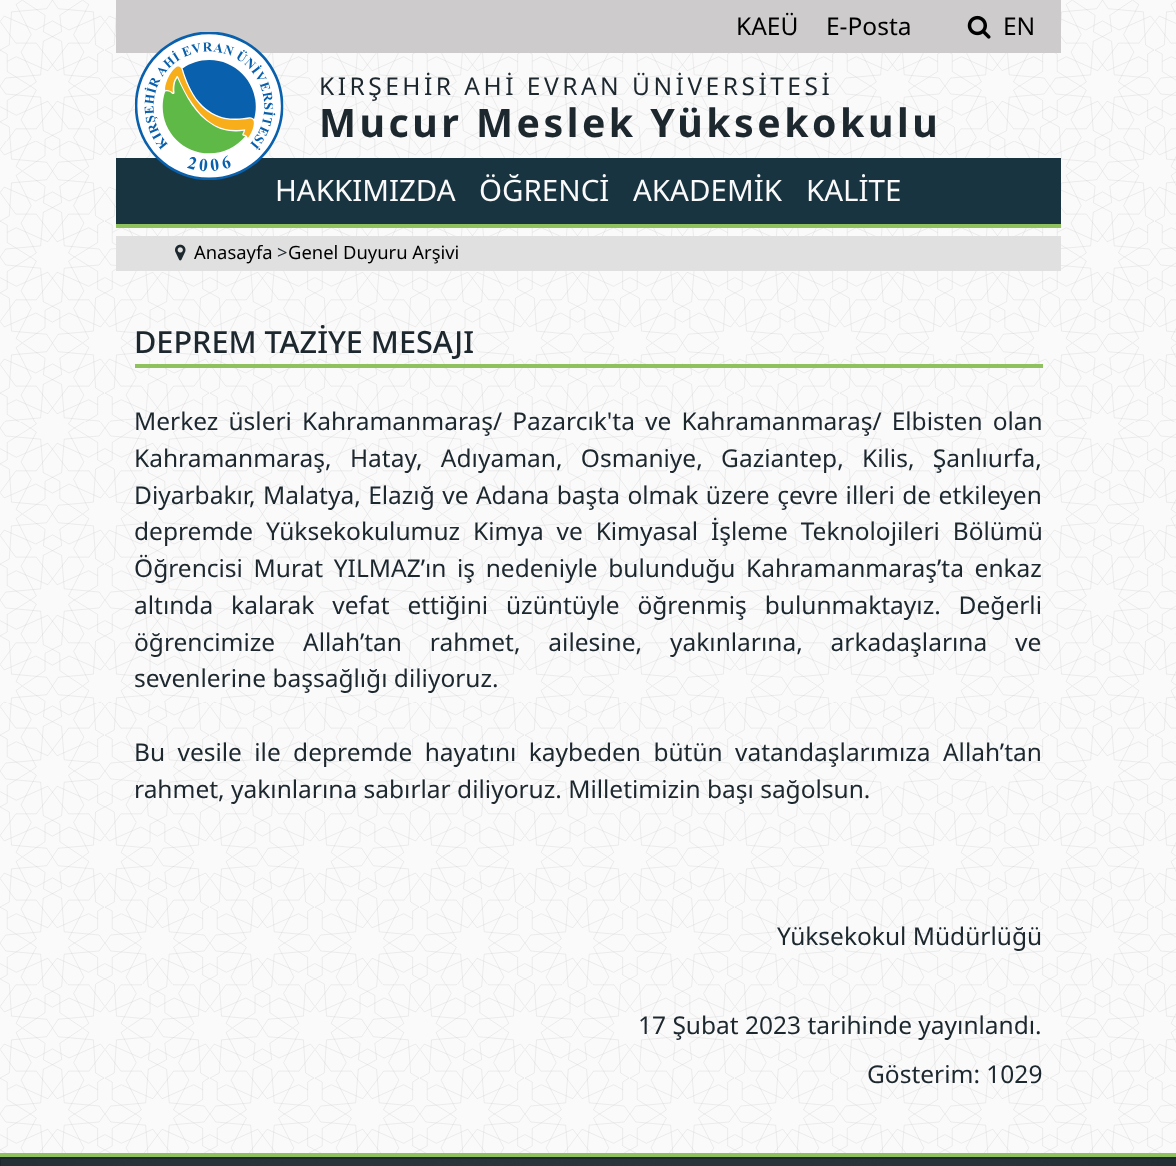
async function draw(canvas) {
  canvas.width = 1176;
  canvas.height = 1166;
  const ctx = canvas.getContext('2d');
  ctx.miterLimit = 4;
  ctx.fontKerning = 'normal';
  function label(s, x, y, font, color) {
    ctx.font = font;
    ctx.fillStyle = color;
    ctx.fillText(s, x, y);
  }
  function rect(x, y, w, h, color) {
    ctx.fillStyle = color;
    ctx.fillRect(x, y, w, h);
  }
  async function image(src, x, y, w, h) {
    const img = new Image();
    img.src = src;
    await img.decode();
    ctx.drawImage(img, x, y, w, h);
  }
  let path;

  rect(0, 0, 1176, 1166, '#fafafa');
  await image('assets/img1.png', 0, 0, 1176, 1153);
  rect(116, 0, 945, 53, '#cdcbcb');
  label('KAEÜ', 736, 35, '24.5px Noto Sans', '#000');
  label('E-Posta', 826, 35, '24.5px Noto Sans', '#000');
  await image('assets/img2.png', 967, 15, 24, 24);
  label('EN', 1003, 35, '24.5px Noto Sans', '#000');
  ctx.fillStyle = '#8fc25f';
  path = new Path2D('M116 224V228H1061V161H1060V224Z');
  ctx.fill(path);
  rect(116, 158, 945, 66, '#193441');
  label('HAKKIMIZDA', 275, 201, '29.5px Noto Sans', '#fafafa');
  await image('assets/img3.png', 135, 32, 149, 148);
  ctx.letterSpacing = '3.5px';
  label('KIRŞEHİR AHİ EVRAN ÜNİVERSİTESİ', 319, 95, '24.5px Noto Sans', '#1c272e');
  label('Mucur Meslek Yüksekokulu', 319, 137, 'bold 39.25px Noto Sans', '#1c272e');
  ctx.letterSpacing = '0px';
  label('ÖĞRENCİ', 479, 201, '29.5px Noto Sans', '#fafafa');
  label('AKADEMİK', 633, 201, '29.5px Noto Sans', '#fafafa');
  label('KALİTE', 806, 201, '29.5px Noto Sans', '#fafafa');
  rect(116, 236, 945, 35, '#e0e0e0');
  await image('assets/img4.png', 175, 244, 11, 17);
  label('Anasayfa', 194, 259, '18.4px Noto Sans', '#000');
  label('>', 277, 259, '18.4px Noto Sans', '#1c272e');
  label('Genel Duyuru Arşivi', 288, 259, '18.4px Noto Sans', '#000');
  rect(135, 364, 908, 4, '#8fc25f');
  label('DEPREM TAZİYE MESAJI', 134, 353, '500 30.6px Noto Sans', '#1c272e');
  ctx.wordSpacing = '3.75px';
  label('Merkez üsleri Kahramanmaraş/ Pazarcık\'ta ve Kahramanmaraş/ Elbisten olan', 134, 430, '24.5px Noto Sans', '#1c272e');
  ctx.wordSpacing = '12px';
  label('Kahramanmaraş, Hatay, Adıyaman, Osmaniye, Gaziantep, Kilis, Şanlıurfa,', 134, 467, '24.5px Noto Sans', '#1c272e');
  ctx.wordSpacing = '1.1px';
  label('Diyarbakır, Malatya, Elazığ ve Adana başta olmak üzere çevre illeri de etkileyen', 134, 504, '24.5px Noto Sans', '#1c272e');
  ctx.wordSpacing = '6.5px';
  label('depremde Yüksekokulumuz Kimya ve Kimyasal İşleme Teknolojileri Bölümü', 134, 540, '24.5px Noto Sans', '#1c272e');
  ctx.wordSpacing = '4.25px';
  label('Öğrencisi Murat YILMAZ’ın iş nedeniyle bulunduğu Kahramanmaraş’ta enkaz', 134, 577, '24.5px Noto Sans', '#1c272e');
  ctx.wordSpacing = '11.5px';
  label('altında kalarak vefat ettiğini üzüntüyle öğrenmiş bulunmaktayız. Değerli', 134, 614, '24.5px Noto Sans', '#1c272e');
  ctx.wordSpacing = '21.5px';
  label('öğrencimize Allah’tan rahmet, ailesine, yakınlarına, arkadaşlarına ve', 134, 651, '24.5px Noto Sans', '#1c272e');
  ctx.wordSpacing = '0px';
  label('sevenlerine başsağlığı diliyoruz.', 134, 687, '24.5px Noto Sans', '#1c272e');
  ctx.wordSpacing = '6px';
  label('Bu vesile ile depremde hayatını kaybeden bütün vatandaşlarımıza Allah’tan', 134, 761, '24.5px Noto Sans', '#1c272e');
  ctx.wordSpacing = '0px';
  label('rahmet, yakınlarına sabırlar diliyoruz. Milletimizin başı sağolsun.', 134, 798, '24.5px Noto Sans', '#1c272e');
  label('Yüksekokul Müdürlüğü', 777, 945, '24.5px Noto Sans', '#1c272e');
  label('17 Şubat 2023 tarihinde yayınlandı.', 638, 1034, '24.5px Noto Sans', '#1c272e');
  label('Gösterim: 1029', 867, 1083, '24.5px Noto Sans', '#1c272e');
  rect(0, 1157, 1176, 9, '#1c272e');
  await image('assets/img5.png', 1, 1159, 1175, 7);
  rect(0, 1153, 1176, 4, '#8fc25f');
}

draw(document.querySelector('canvas'));
